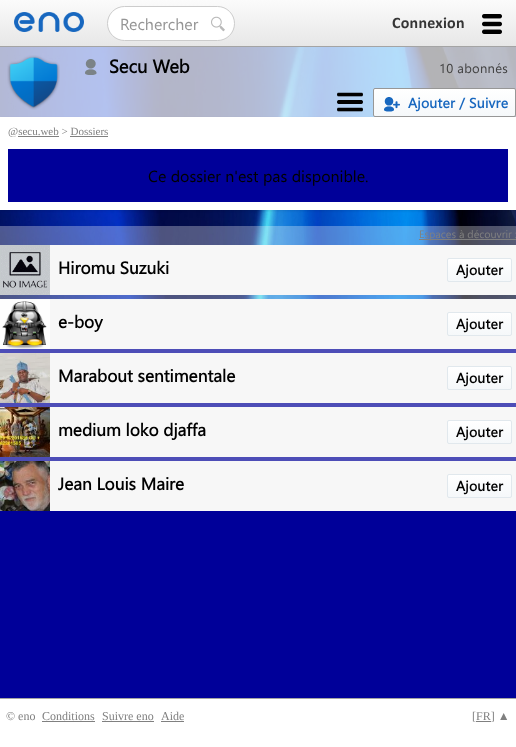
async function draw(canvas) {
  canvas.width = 516;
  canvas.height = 747;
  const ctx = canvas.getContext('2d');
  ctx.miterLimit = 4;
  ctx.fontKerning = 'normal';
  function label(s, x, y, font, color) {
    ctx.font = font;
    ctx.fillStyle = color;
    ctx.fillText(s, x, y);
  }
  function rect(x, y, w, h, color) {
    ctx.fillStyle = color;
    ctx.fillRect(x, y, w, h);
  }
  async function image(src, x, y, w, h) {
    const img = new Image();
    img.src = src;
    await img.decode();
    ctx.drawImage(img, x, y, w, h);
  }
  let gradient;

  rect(0, 0, 516, 747, '#fff');
  gradient = ctx.createLinearGradient(258, 0, 258, 46);
  gradient.addColorStop(0, '#fbfbfb');
  gradient.addColorStop(1, '#e7e7e7');
  ctx.fillStyle = gradient;
  ctx.fillRect(0, 0, 516, 46);
  rect(0, 46, 516, 1, '#a4a4a4');
  await image('assets/img1.png', 14, 12, 70, 20);
  ctx.fillStyle = '#fff';
  ctx.beginPath();
  ctx.roundRect(107.5, 6.5, 127, 34, 17);
  ctx.fill();
  ctx.strokeStyle = '#ccc';
  ctx.stroke();
  label('Rechercher', 120, 30, '16px Segoe UI', '#959595');
  await image('assets/img2.png', 211, 16, 14, 16);
  ctx.letterSpacing = '0.25px';
  label('Connexion', 392, 28, 'bold 16px Calibri', '#353535');
  await image('assets/img3.png', 482, 14, 20, 20);
  rect(0, 47, 516, 651, '#009');
  await image('assets/img4.png', 0, 47, 516, 252);
  rect(0, 47, 516, 70, '#ffffffb3');
  await image('assets/img5.png', 7, 55, 53, 55);
  await image('assets/img6.png', 85, 59, 12, 16);
  ctx.letterSpacing = '0px';
  label('Secu Web', 109, 73, 'bold 18.5px Segoe UI', '#000');
  ctx.letterSpacing = '0.25px';
  label('10 abonnés', 439, 73, '13px Segoe UI', '#424242');
  await image('assets/img7.png', 337, 92, 26, 20);
  ctx.fillStyle = '#0000001a';
  ctx.filter = 'blur(1px)';
  ctx.beginPath();
  ctx.rect(0, 118, 516, 93);
  ctx.fill();
  ctx.filter = 'none';
  ctx.save();
  ctx.beginPath();
  ctx.roundRect(373, 88, 143, 29, 2);
  ctx.clip();
  gradient = ctx.createLinearGradient(445, 89, 445, 116);
  gradient.addColorStop(0, '#fff');
  gradient.addColorStop(1, '#f5f8fa');
  ctx.fillStyle = gradient;
  ctx.fillRect(373, 89, 143, 27);
  ctx.restore();
  ctx.beginPath();
  ctx.roundRect(373.5, 88.5, 142, 28, 1.5);
  ctx.strokeStyle = '#979797';
  ctx.stroke();
  await image('assets/img8.png', 384, 97, 16, 15);
  label('Ajouter / Suivre', 408, 108, 'bold 14px Segoe UI', '#1767bf');
  rect(0, 117, 516, 93, '#fff');
  ctx.letterSpacing = '0px';
  label('@secu.web > Dossiers', 8, 135, '11px Liberation Serif', '#808080');
  rect(18, 136, 41, 1, '#808080');
  rect(70, 136, 38, 1, '#808080');
  rect(8, 149, 500, 53, '#009');
  label('Ce dossier n\'est pas disponible.', 148, 182, '16px Segoe UI', '#000');
  rect(0, 226, 516, 235, '#ffffff4d');
  rect(419, 239, 97, 1, '#808080');
  label('Espaces à découvrir :', 419, 238, '10.75px Segoe UI', '#808080');
  rect(50, 245, 466, 50, '#f7f7f7');
  await image('assets/img9.png', 0, 245, 50, 50);
  label('Hiromu Suzuki', 58, 274, 'bold 17.25px Segoe UI', '#000');
  ctx.save();
  ctx.beginPath();
  ctx.roundRect(447, 258, 65, 24, 2);
  ctx.clip();
  gradient = ctx.createLinearGradient(480, 259, 480, 281);
  gradient.addColorStop(0, '#fff');
  gradient.addColorStop(1, '#f5f8fa');
  ctx.fillStyle = gradient;
  ctx.fillRect(447, 259, 65, 22);
  ctx.restore();
  ctx.beginPath();
  ctx.roundRect(447.5, 258.5, 64, 23, 1.5);
  ctx.strokeStyle = '#e1e8ed';
  ctx.stroke();
  ctx.letterSpacing = '0.25px';
  label('Ajouter', 456, 275, 'bold 14px Segoe UI', '#000');
  rect(50, 299, 466, 50, '#f7f7f7');
  await image('assets/img10.png', 0, 299, 50, 50);
  ctx.letterSpacing = '0px';
  label('e-boy', 58, 328, 'bold 17.25px Segoe UI', '#000');
  ctx.save();
  ctx.beginPath();
  ctx.roundRect(447, 312, 65, 24, 2);
  ctx.clip();
  gradient = ctx.createLinearGradient(480, 313, 480, 335);
  gradient.addColorStop(0, '#fff');
  gradient.addColorStop(1, '#f5f8fa');
  ctx.fillStyle = gradient;
  ctx.fillRect(447, 313, 65, 22);
  ctx.restore();
  ctx.beginPath();
  ctx.roundRect(447.5, 312.5, 64, 23, 1.5);
  ctx.stroke();
  ctx.letterSpacing = '0.25px';
  label('Ajouter', 456, 329, 'bold 14px Segoe UI', '#000');
  rect(50, 353, 466, 50, '#f7f7f7');
  await image('assets/img11.png', 0, 353, 50, 50);
  ctx.letterSpacing = '0px';
  label('Marabout sentimentale', 58, 382, 'bold 17.25px Segoe UI', '#000');
  ctx.save();
  ctx.beginPath();
  ctx.roundRect(447, 366, 65, 24, 2);
  ctx.clip();
  gradient = ctx.createLinearGradient(480, 367, 480, 389);
  gradient.addColorStop(0, '#fff');
  gradient.addColorStop(1, '#f5f8fa');
  ctx.fillStyle = gradient;
  ctx.fillRect(447, 367, 65, 22);
  ctx.restore();
  ctx.beginPath();
  ctx.roundRect(447.5, 366.5, 64, 23, 1.5);
  ctx.stroke();
  ctx.letterSpacing = '0.25px';
  label('Ajouter', 456, 383, 'bold 14px Segoe UI', '#000');
  rect(50, 407, 466, 50, '#f7f7f7');
  await image('assets/img12.png', 0, 407, 50, 50);
  ctx.letterSpacing = '0px';
  label('medium loko djaffa', 58, 436, 'bold 17.25px Segoe UI', '#000');
  ctx.save();
  ctx.beginPath();
  ctx.roundRect(447, 420, 65, 24, 2);
  ctx.clip();
  gradient = ctx.createLinearGradient(480, 421, 480, 443);
  gradient.addColorStop(0, '#fff');
  gradient.addColorStop(1, '#f5f8fa');
  ctx.fillStyle = gradient;
  ctx.fillRect(447, 421, 65, 22);
  ctx.restore();
  ctx.beginPath();
  ctx.roundRect(447.5, 420.5, 64, 23, 1.5);
  ctx.stroke();
  ctx.letterSpacing = '0.25px';
  label('Ajouter', 456, 437, 'bold 14px Segoe UI', '#000');
  rect(50, 461, 466, 50, '#f7f7f7');
  await image('assets/img13.png', 0, 461, 50, 50);
  ctx.letterSpacing = '0px';
  label('Jean Louis Maire', 58, 490, 'bold 17.25px Segoe UI', '#000');
  ctx.save();
  ctx.beginPath();
  ctx.roundRect(447, 474, 65, 24, 2);
  ctx.clip();
  gradient = ctx.createLinearGradient(480, 475, 480, 497);
  gradient.addColorStop(0, '#fff');
  gradient.addColorStop(1, '#f5f8fa');
  ctx.fillStyle = gradient;
  ctx.fillRect(447, 475, 65, 22);
  ctx.restore();
  ctx.beginPath();
  ctx.roundRect(447.5, 474.5, 64, 23, 1.5);
  ctx.stroke();
  ctx.letterSpacing = '0.25px';
  label('Ajouter', 456, 491, 'bold 14px Segoe UI', '#000');
  rect(0, 698, 516, 1, '#a4a4a4');
  ctx.letterSpacing = '0px';
  label('© eno', 6, 720, '12px Liberation Serif', '#808080');
  label('Conditions', 42, 720, '12px Liberation Serif', '#808080');
  rect(42, 721, 53, 1, '#808080');
  label('Suivre eno', 102, 720, '12px Liberation Serif', '#808080');
  rect(102, 721, 52, 1, '#808080');
  label('Aide', 161, 720, '12px Liberation Serif', '#808080');
  rect(161, 721, 23, 1, '#808080');
  label('[FR] ▲', 472, 720, '12px Liberation Serif', '#808080');
  rect(476, 721, 15, 1, '#808080');
}

draw(document.querySelector('canvas'));
